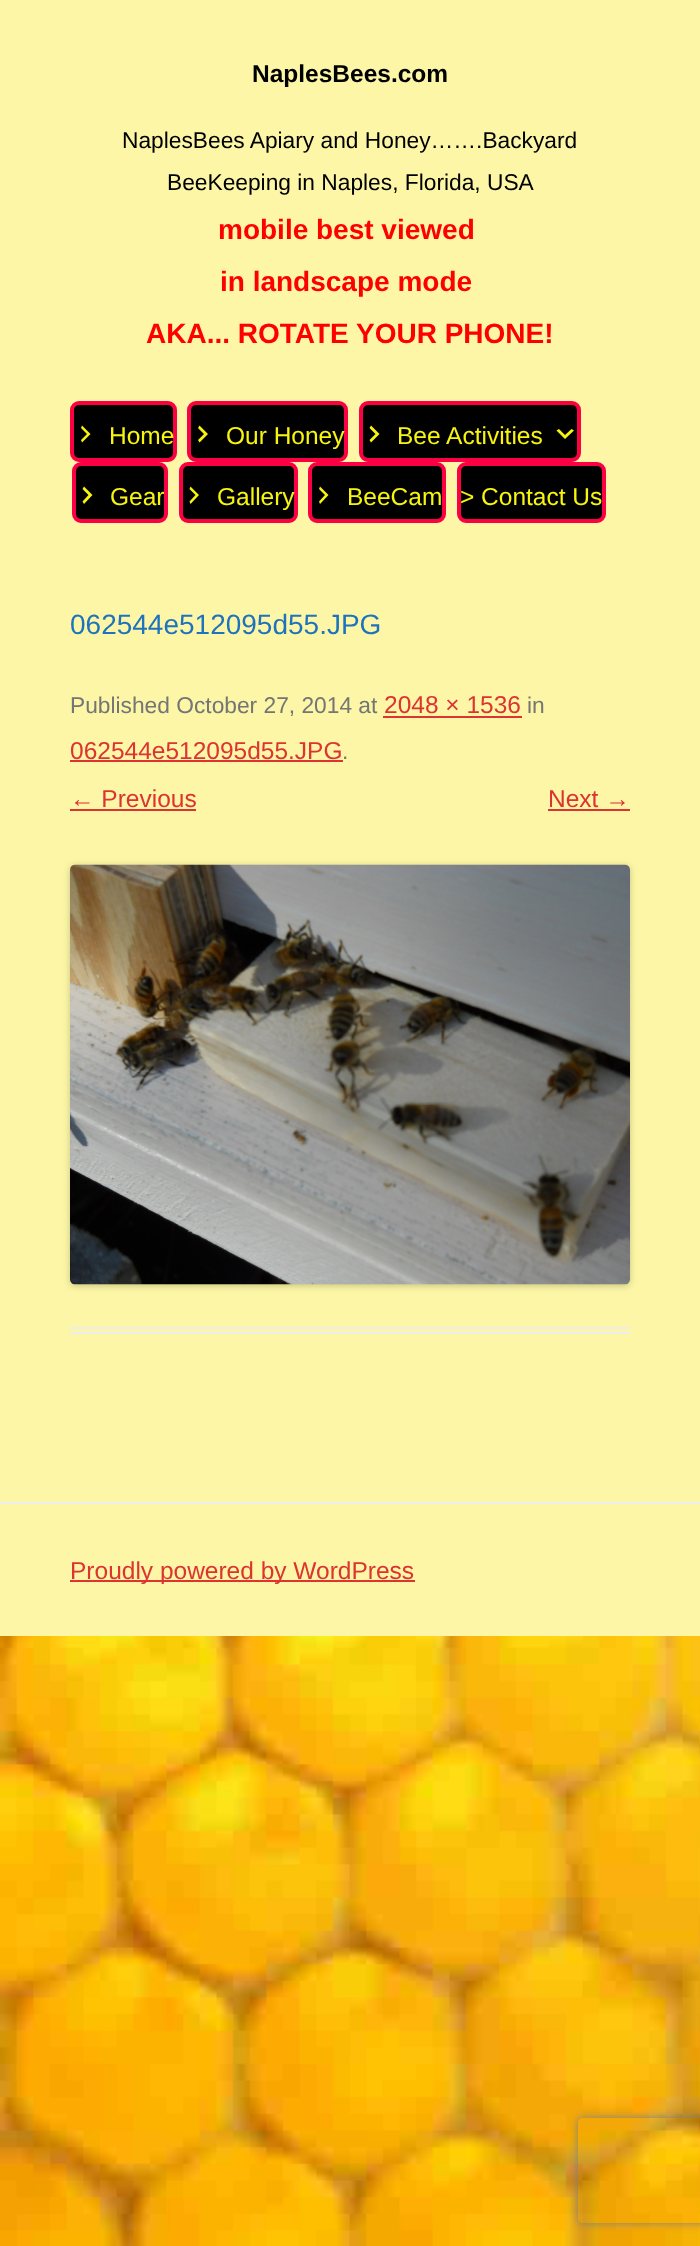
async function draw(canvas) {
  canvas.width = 700;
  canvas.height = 2246;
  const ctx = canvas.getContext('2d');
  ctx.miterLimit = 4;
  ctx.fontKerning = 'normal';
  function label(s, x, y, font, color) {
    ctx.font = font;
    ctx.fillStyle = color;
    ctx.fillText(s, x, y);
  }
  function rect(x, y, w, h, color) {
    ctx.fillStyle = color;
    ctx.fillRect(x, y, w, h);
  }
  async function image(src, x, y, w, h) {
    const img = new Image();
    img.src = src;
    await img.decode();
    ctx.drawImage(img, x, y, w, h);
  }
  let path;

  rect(0, 0, 700, 2246, '#fff');
  await image('assets/img1.png', 0, 1636, 700, 610);
  rect(0, 0, 700, 1636, '#fcf6a6');
  label('NaplesBees.com', 252, 82, 'bold 24.5px Liberation Sans', '#000');
  label('NaplesBees Apiary and Honey…….Backyard', 122, 148, '22.75px Liberation Sans', '#000');
  label('BeeKeeping in Naples, Florida, USA', 167, 190, '22.75px Liberation Sans', '#000');
  label('mobile best viewed', 218, 239, 'bold 28px Liberation Sans', '#f00');
  label('in landscape mode', 220, 291, 'bold 28px Liberation Sans', '#f00');
  label('AKA... ROTATE YOUR PHONE!', 146, 343, 'bold 28px Liberation Sans', '#f00');
  ctx.fillStyle = '#000';
  ctx.beginPath();
  ctx.roundRect(72, 403, 103, 57, 7);
  ctx.fill();
  ctx.strokeStyle = '#fb0042';
  ctx.lineWidth = 4;
  ctx.stroke();
  ctx.fillStyle = '#f7f40f';
  path = new Path2D('M81 440L87 434L81 428L82 425.5L90.5 434L82 442.5Z');
  ctx.fill(path);
  label('Home', 109, 444, '24.5px Liberation Sans', '#f7f40f');
  rect(187, 401, 2, 61, '#fcf7af');
  rect(186, 401, 2, 61, '#ffffff1a');
  ctx.fillStyle = '#000';
  ctx.beginPath();
  ctx.roundRect(189, 403, 157, 57, 7);
  ctx.fill();
  ctx.stroke();
  ctx.fillStyle = '#f7f40f';
  path = new Path2D('M198 440L204 434L198 428L199.5 425.5L208 434L199.5 442.5Z');
  ctx.fill(path);
  label('Our Honey', 226, 444, '24.5px Liberation Sans', '#f7f40f');
  rect(357, 401, 4, 61, '#fcf7af');
  ctx.fillStyle = '#000';
  ctx.beginPath();
  ctx.roundRect(361, 403, 218, 57, 7);
  ctx.fill();
  ctx.stroke();
  ctx.fillStyle = '#f7f40f';
  path = new Path2D('M369.5 440L375.5 434L369.5 428L371 425.5L379.5 434L371 442.5Z');
  ctx.fill(path);
  label('Bee Activities', 397, 444, '24.5px Liberation Sans', '#f7f40f');
  path = new Path2D('M559 429L565 435L571.5 429L574 430.5L565 439L556.5 430.5Z');
  ctx.fill(path);
  rect(70, 462, 4, 61, '#fcf7af');
  ctx.fillStyle = '#000';
  ctx.beginPath();
  ctx.roundRect(74, 464, 92, 57, 7);
  ctx.fill();
  ctx.stroke();
  ctx.fillStyle = '#f7f40f';
  path = new Path2D('M82.5 501.5L88.5 495L82.5 489L84 486.5L92.5 495L84 504Z');
  ctx.fill(path);
  label('Gear', 110, 505, '24.5px Liberation Sans', '#f7f40f');
  rect(177, 462, 4, 61, '#fcf7af');
  ctx.fillStyle = '#000';
  ctx.beginPath();
  ctx.roundRect(181, 464, 115, 57, 7);
  ctx.fill();
  ctx.stroke();
  ctx.fillStyle = '#f7f40f';
  path = new Path2D('M189.5 501.5L195.5 495L189.5 489L190.5 486.5L199 495L190.5 504Z');
  ctx.fill(path);
  label('Gallery', 217, 505, '24.5px Liberation Sans', '#f7f40f');
  rect(306, 462, 4, 61, '#fcf7af');
  ctx.fillStyle = '#000';
  ctx.beginPath();
  ctx.roundRect(310, 464, 134, 57, 7);
  ctx.fill();
  ctx.stroke();
  ctx.fillStyle = '#f7f40f';
  path = new Path2D('M319 501.5L325 495L319 489L320 486.5L328.5 495L320 504Z');
  ctx.fill(path);
  label('BeeCam', 347, 505, '24.5px Liberation Sans', '#f7f40f');
  rect(455, 462, 4, 61, '#fcf7af');
  ctx.fillStyle = '#000';
  ctx.beginPath();
  ctx.roundRect(459, 464, 145, 57, 7);
  ctx.fill();
  ctx.stroke();
  label('> Contact Us', 460, 505, '24.5px Liberation Sans', '#f7f40f');
  rect(70, 1327, 560, 2, '#ededed');
  rect(70, 1332, 560, 2, '#ededed');
  label('062544e512095d55.JPG', 70, 634, '28px Liberation Sans', '#1e73be');
  label('Published October 27, 2014 at', 70, 713, '22.75px Liberation Sans', '#757575');
  label('2048 × 1536', 384, 713, '24.5px Liberation Sans', '#d33');
  rect(383, 716, 139, 2, '#d33');
  label('in', 527, 713, '22.75px Liberation Sans', '#757575');
  label('062544e512095d55.JPG', 70, 759, '24.5px Liberation Sans', '#d33');
  rect(70, 760, 273, 2, '#d33');
  label('.', 342, 759, '22.75px Liberation Sans', '#757575');
  label('← Previous', 70, 807, '24.5px Liberation Sans', '#d33');
  rect(70, 809, 126, 2, '#d33');
  label('Next →', 548, 807, '24.5px Liberation Sans', '#d33');
  rect(548, 809, 82, 2, '#d33');
  ctx.fillStyle = '#00000033';
  ctx.filter = 'blur(3.5px)';
  ctx.beginPath();
  ctx.roundRect(70, 866, 560, 420, 5);
  ctx.fill();
  ctx.filter = 'none';
  await image('assets/img2.png', 70, 864, 560, 421);
  rect(0, 1502, 700, 2, '#ededed');
  rect(70, 1580, 345, 2, '#d33');
  label('Proudly powered by WordPress', 70, 1579, '24.5px Liberation Sans', '#d33');
  ctx.save();
  path = new Path2D('M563 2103H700V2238H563ZM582 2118H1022C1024 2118 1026 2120 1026 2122V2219C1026 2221 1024 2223 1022 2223H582C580 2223 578 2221 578 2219V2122C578 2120 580 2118 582 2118Z');
  ctx.clip(path, 'evenodd');
  ctx.fillStyle = '#808080';
  ctx.filter = 'blur(4.5px)';
  ctx.beginPath();
  ctx.roundRect(578, 2118, 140, 105, 4);
  ctx.fill();
  ctx.filter = 'none';
  ctx.restore();
}

draw(document.querySelector('canvas'));
